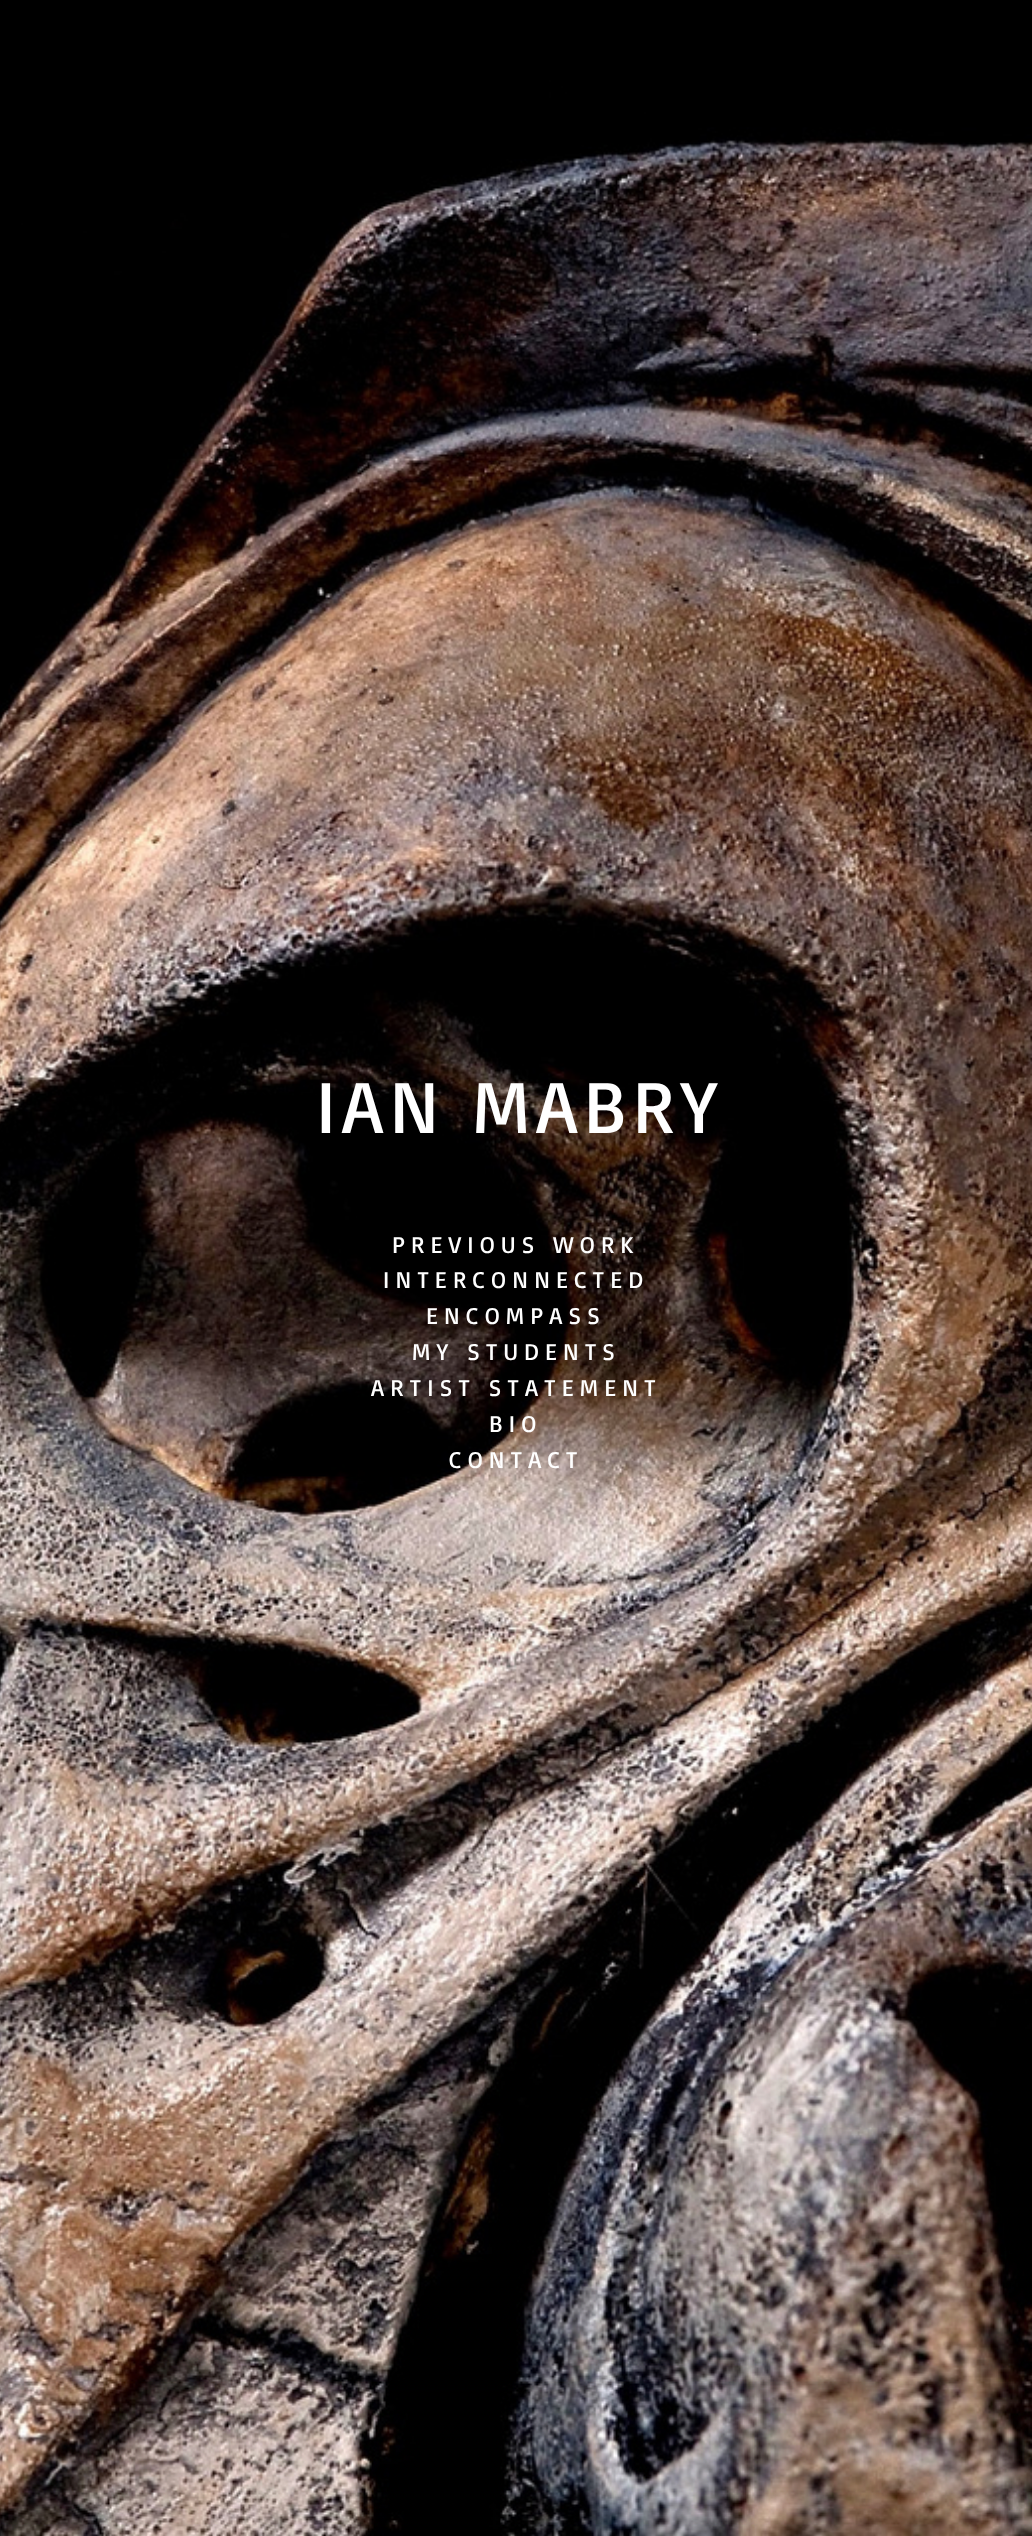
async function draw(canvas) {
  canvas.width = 1032;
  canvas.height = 2536;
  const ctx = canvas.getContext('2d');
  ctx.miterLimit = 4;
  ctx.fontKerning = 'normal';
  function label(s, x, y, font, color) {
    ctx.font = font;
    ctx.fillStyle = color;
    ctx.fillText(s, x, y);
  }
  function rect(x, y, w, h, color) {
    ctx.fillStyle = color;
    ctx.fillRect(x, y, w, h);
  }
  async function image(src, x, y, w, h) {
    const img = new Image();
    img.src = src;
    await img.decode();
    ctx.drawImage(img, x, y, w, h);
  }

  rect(0, 0, 1032, 2536, '#fff');
  await image('assets/img1.png', 0, 0, 1032, 2536);
  ctx.letterSpacing = '6.25px';
  label('IAN MABRY', 316, 1133, '75px Basic', '#fff');
  label('PREVIOUS WORK', 392, 1253, '23.75px Basic', '#fff');
  label('INTERCONNECTED', 383, 1288, '23.75px Basic', '#fff');
  label('ENCOMPASS', 426, 1324, '23.75px Basic', '#fff');
  label('MY STUDENTS', 412, 1360, '23.75px Basic', '#fff');
  label('ARTIST STATEMENT', 371, 1396, '23.75px Basic', '#fff');
  label('BIO', 489, 1432, '23.75px Basic', '#fff');
  label('CONTACT', 449, 1468, '23.75px Basic', '#fff');
}

draw(document.querySelector('canvas'));
